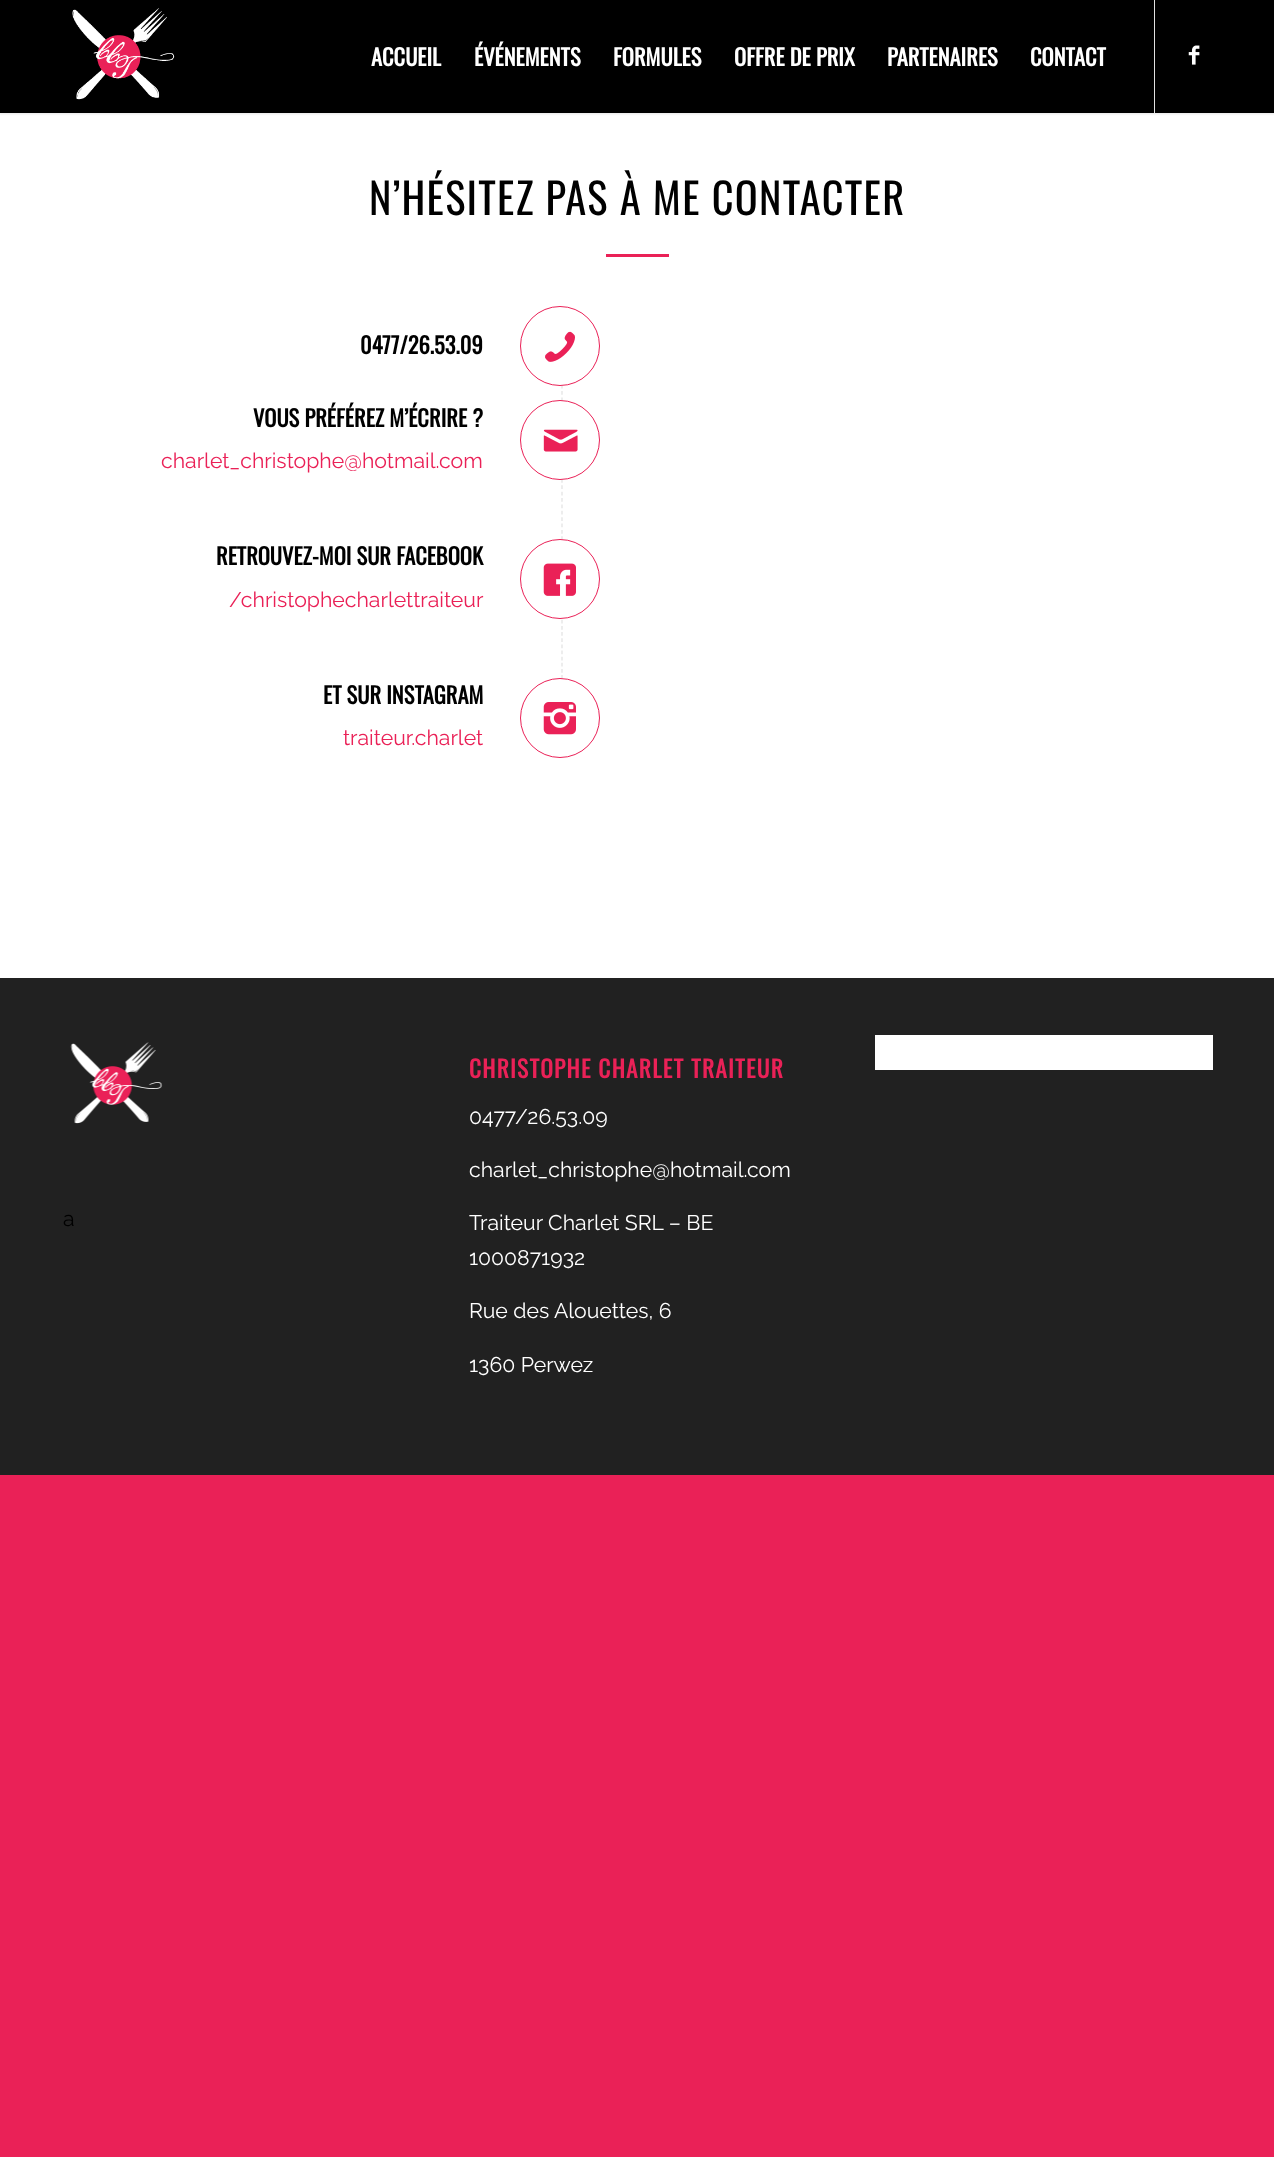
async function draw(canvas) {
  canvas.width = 1274;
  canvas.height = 2157;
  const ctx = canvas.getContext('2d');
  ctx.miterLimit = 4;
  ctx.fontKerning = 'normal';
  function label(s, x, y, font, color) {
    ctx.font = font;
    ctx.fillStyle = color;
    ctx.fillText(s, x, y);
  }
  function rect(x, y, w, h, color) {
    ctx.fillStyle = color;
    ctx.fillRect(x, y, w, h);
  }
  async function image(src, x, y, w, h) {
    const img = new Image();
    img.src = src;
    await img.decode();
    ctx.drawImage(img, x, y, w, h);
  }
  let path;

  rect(0, 0, 1274, 2157, '#ea2157');
  rect(0, 113, 1274, 865, '#fff');
  ctx.fillStyle = '#0000001a';
  ctx.filter = 'blur(1px)';
  ctx.beginPath();
  ctx.rect(-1, -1, 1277, 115);
  ctx.fill();
  ctx.filter = 'none';
  rect(0, 0, 1274, 113, '#000');
  await image('assets/img1.png', 72, 8, 103, 92);
  rect(1154, 0, 1, 113, '#e1e1e1');
  label('ACCUEIL', 371, 66, 'bold 22.5px Oswald', '#fff');
  label('ÉVÉNEMENTS', 474, 66, 'bold 22.5px Oswald', '#fff');
  label('FORMULES', 613, 66, 'bold 22.5px Oswald', '#fff');
  label('OFFRE DE PRIX', 734, 66, 'bold 22.5px Oswald', '#fff');
  label('PARTENAIRES', 887, 66, 'bold 22.5px Oswald', '#fff');
  label('CONTACT', 1030, 66, 'bold 22.5px Oswald', '#fff');
  await image('assets/img2.png', 1188, 45, 12, 20);
  ctx.letterSpacing = '1.25px';
  label('N’HÉSITEZ PAS À ME CONTACTER', 369, 215, '42.5px Oswald', '#000');
  rect(606, 254, 63, 3, '#ea2157');
  path = new Path2D('M562 307.5V401');
  ctx.strokeStyle = '#e1e1e1';
  ctx.lineWidth = 1.2;
  ctx.setLineDash([3.75, 2.68]);
  ctx.stroke(path);
  ctx.fillStyle = '#fff';
  ctx.beginPath();
  ctx.arc(560, 346, 39.5, 0, 2 * Math.PI);
  ctx.fill();
  ctx.strokeStyle = '#ea2157';
  ctx.lineWidth = 1;
  ctx.setLineDash([]);
  ctx.stroke();
  await image('assets/img3.png', 545, 331, 30, 31);
  ctx.letterSpacing = '0px';
  label('0477/26.53.09', 360, 354, 'bold 22.5px Oswald', '#000');
  path = new Path2D('M562 402.5V540');
  ctx.strokeStyle = '#e1e1e1';
  ctx.lineWidth = 1.2;
  ctx.setLineDash([3.75, 2.62]);
  ctx.stroke(path);
  ctx.fillStyle = '#fff';
  ctx.beginPath();
  ctx.arc(560, 440, 39.5, 0, 2 * Math.PI);
  ctx.fill();
  ctx.strokeStyle = '#ea2157';
  ctx.lineWidth = 1;
  ctx.setLineDash([]);
  ctx.stroke();
  await image('assets/img4.png', 543, 429, 35, 23);
  label('VOUS PRÉFÉREZ M’ÉCRIRE ?', 253, 427, 'bold 22.5px Oswald', '#000');
  label('charlet_christophe@hotmail.com', 161, 468, '100 21.25px Raleway', '#ea2157');
  path = new Path2D('M562 540V679');
  ctx.strokeStyle = '#e1e1e1';
  ctx.lineWidth = 1.2;
  ctx.setLineDash([3.75, 2.39]);
  ctx.stroke(path);
  ctx.fillStyle = '#fff';
  ctx.beginPath();
  ctx.arc(560, 579, 39.5, 0, 2 * Math.PI);
  ctx.fill();
  ctx.strokeStyle = '#ea2157';
  ctx.lineWidth = 1;
  ctx.setLineDash([]);
  ctx.stroke();
  await image('assets/img5.png', 543, 563, 33, 33);
  label('RETROUVEZ-MOI SUR FACEBOOK', 216, 565, 'bold 22.5px Oswald', '#000');
  label('/christophecharlettraiteur', 229, 607, '100 21.25px Raleway', '#ea2157');
  label('ET SUR INSTAGRAM', 323, 704, 'bold 22.5px Oswald', '#000');
  label('traiteur.charlet', 343, 745, '100 21.25px Raleway', '#ea2157');
  ctx.fillStyle = '#fff';
  ctx.beginPath();
  ctx.arc(560, 718, 39.5, 0, 2 * Math.PI);
  ctx.fill();
  ctx.stroke();
  await image('assets/img6.png', 543, 702, 33, 33);
  rect(0, 978, 1274, 497, '#212121');
  rect(875, 1035, 338, 35, '#fff');
  await image('assets/img7.png', 70, 1042, 93, 82);
  label('a', 63, 1226, '100 21.25px Raleway', '#000');
  ctx.letterSpacing = '1.25px';
  label('CHRISTOPHE CHARLET TRAITEUR', 469, 1078, 'bold 23.4px Oswald', '#ea2157');
  ctx.letterSpacing = '0px';
  label('0477/26.53.09', 469, 1124, '100 21.25px Raleway', '#fff');
  label('charlet_christophe@hotmail.com', 469, 1177, '100 21.25px Raleway', '#fff');
  label('Traiteur Charlet SRL – BE', 469, 1230, '100 21.25px Raleway', '#fff');
  label('1000871932', 469, 1265, '100 21.25px Raleway', '#fff');
  label('Rue des Alouettes, 6', 469, 1318, '100 21.25px Raleway', '#fff');
  label('1360 Perwez', 469, 1372, '100 21.25px Raleway', '#fff');
}

draw(document.querySelector('canvas'));
